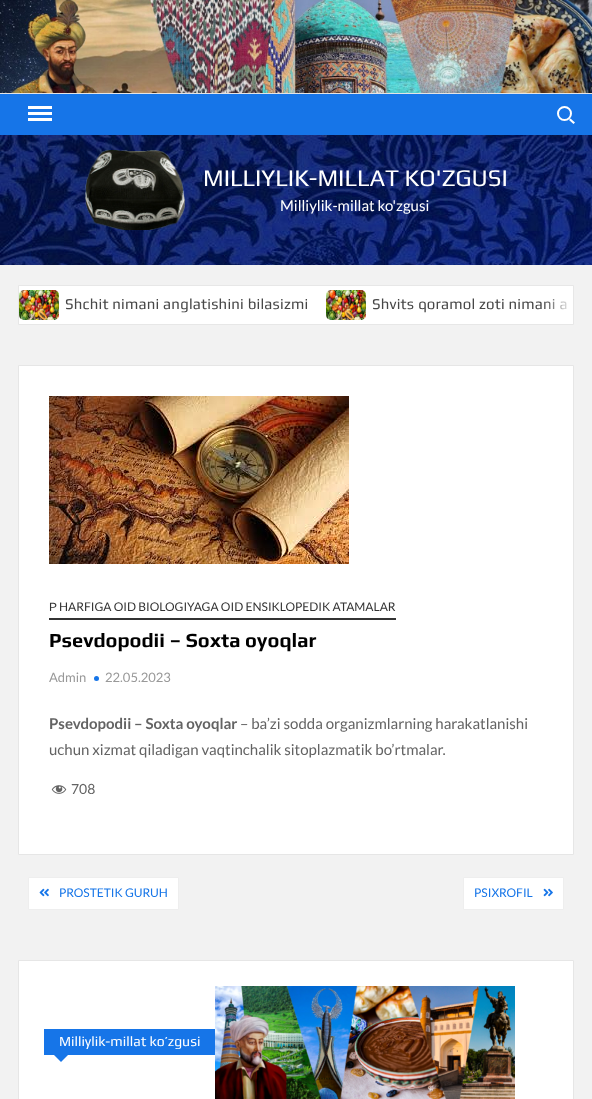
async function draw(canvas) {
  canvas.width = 592;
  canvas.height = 1099;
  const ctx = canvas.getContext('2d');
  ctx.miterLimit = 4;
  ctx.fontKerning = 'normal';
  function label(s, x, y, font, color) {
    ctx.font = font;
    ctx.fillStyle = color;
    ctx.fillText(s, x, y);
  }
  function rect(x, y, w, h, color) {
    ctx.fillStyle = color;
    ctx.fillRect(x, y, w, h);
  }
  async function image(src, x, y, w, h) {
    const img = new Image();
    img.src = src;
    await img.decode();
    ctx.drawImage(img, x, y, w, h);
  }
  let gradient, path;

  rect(0, 0, 592, 1099, '#f2f2f2');
  await image('assets/img1.png', 0, 0, 592, 93);
  rect(0, 93, 592, 1, '#e4e4e4');
  rect(0, 94, 592, 41, '#1675e8');
  rect(28, 112, 24, 3, '#fff');
  rect(28, 106, 24, 3, '#fff');
  rect(28, 118, 24, 3, '#fff');
  ctx.beginPath();
  ctx.arc(564.5, 113.5, 6.5, 0, 2 * Math.PI);
  ctx.strokeStyle = '#fff';
  ctx.lineWidth = 2;
  ctx.stroke();
  path = new Path2D('M570.5 118.5L575 122.5L573.5 124L569 120Z');
  ctx.fill(path);
  await image('assets/img2.png', 0, 135, 592, 130);
  await image('assets/img3.png', 85, 150, 100, 80);
  label('MILLIYLIK-MILLAT KO\'ZGUSI', 203, 186, '24px Play', '#fff');
  label('Milliylik-millat ko\'zgusi', 280, 211, '15px Lato', '#fff');
  ctx.beginPath();
  ctx.rect(18.5, 285.5, 555, 39);
  ctx.fill();
  ctx.strokeStyle = '#e7e7e7';
  ctx.lineWidth = 1;
  ctx.stroke();
  await image('assets/img4.png', 19, 290, 40, 30);
  ctx.letterSpacing = '0.2px';
  label('Shchit nimani anglatishini bilasizmi', 65, 309, '15px Play', '#474747');
  await image('assets/img4.png', 326, 290, 40, 30);
  label('Shvits qoramol zoti nimani a', 372, 309, '15px Play', '#474747');
  gradient = ctx.createLinearGradient(543, 305, 573, 305);
  gradient.addColorStop(0, '#ffffff00');
  gradient.addColorStop(1, '#fff');
  ctx.fillStyle = gradient;
  ctx.fillRect(544, 299, 23, 11);
  ctx.fillStyle = '#fff';
  ctx.beginPath();
  ctx.rect(18.5, 365.5, 555, 489);
  ctx.fill();
  ctx.strokeStyle = '#e6e6e6';
  ctx.stroke();
  await image('assets/img5.png', 49, 396, 300, 168);
  rect(49, 618, 347, 2, '#333');
  ctx.letterSpacing = '0px';
  label('Р', 49, 611, '12px Liberation Sans', '#333');
  label('HARFIGA OID BIOLOGIYAGA OID ENSIKLOPEDIK ATAMALAR', 59, 611, '12px Lato', '#333');
  label('Psevdopodii – Soxta oyoqlar', 49, 647, 'bold 20px Play', '#000');
  label('Admin', 49, 682, '13px Lato', '#999');
  ctx.fillStyle = '#1675e8';
  ctx.beginPath();
  ctx.arc(96.5, 678.5, 2.5, 0, 2 * Math.PI);
  ctx.fill();
  label('22.05.2023', 105, 682, '13px Lato', '#999');
  label('Psevdopodii – Soxta oyoqlar', 49, 729, 'bold 15px Lato', '#636363');
  label('– ba’zi sodda organizmlarning harakatlanishi', 240, 729, '15px Lato', '#636363');
  label('uchun xizmat qiladigan vaqtinchalik sitoplazmatik bo’rtmalar.', 49, 755, '15px Lato', '#636363');
  await image('assets/img6.png', 51, 785, 16, 9);
  label('708', 71, 794, '14px Lato', '#636363');
  ctx.fillStyle = '#fff';
  ctx.beginPath();
  ctx.rect(28.5, 877.5, 150, 32);
  ctx.fill();
  ctx.strokeStyle = '#eee';
  ctx.stroke();
  await image('assets/img7.png', 39, 888, 10, 9);
  label('PROSTETIK GURUH', 59, 897, '12px Lato', '#1675e8');
  ctx.fillStyle = '#fff';
  ctx.beginPath();
  ctx.rect(463.5, 877.5, 100, 32);
  ctx.fill();
  ctx.stroke();
  label('PSIXROFIL', 474, 897, '12px Lato', '#1675e8');
  await image('assets/img8.png', 543, 888, 10, 9);
  ctx.fillStyle = '#fff';
  ctx.beginPath();
  ctx.rect(18.5, 960.5, 555, 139);
  ctx.fill();
  ctx.strokeStyle = '#e6e6e6';
  ctx.stroke();
  rect(44, 1029, 171, 26, '#1675e8');
  label('Milliylik-millat ko’zgusi', 59, 1046, '14px Play', '#fff');
  ctx.fillStyle = '#1675e8';
  path = new Path2D('M54 1055H68L61 1062Z');
  ctx.fill(path);
  await image('assets/img9.png', 215, 986, 300, 113);
}

draw(document.querySelector('canvas'));
